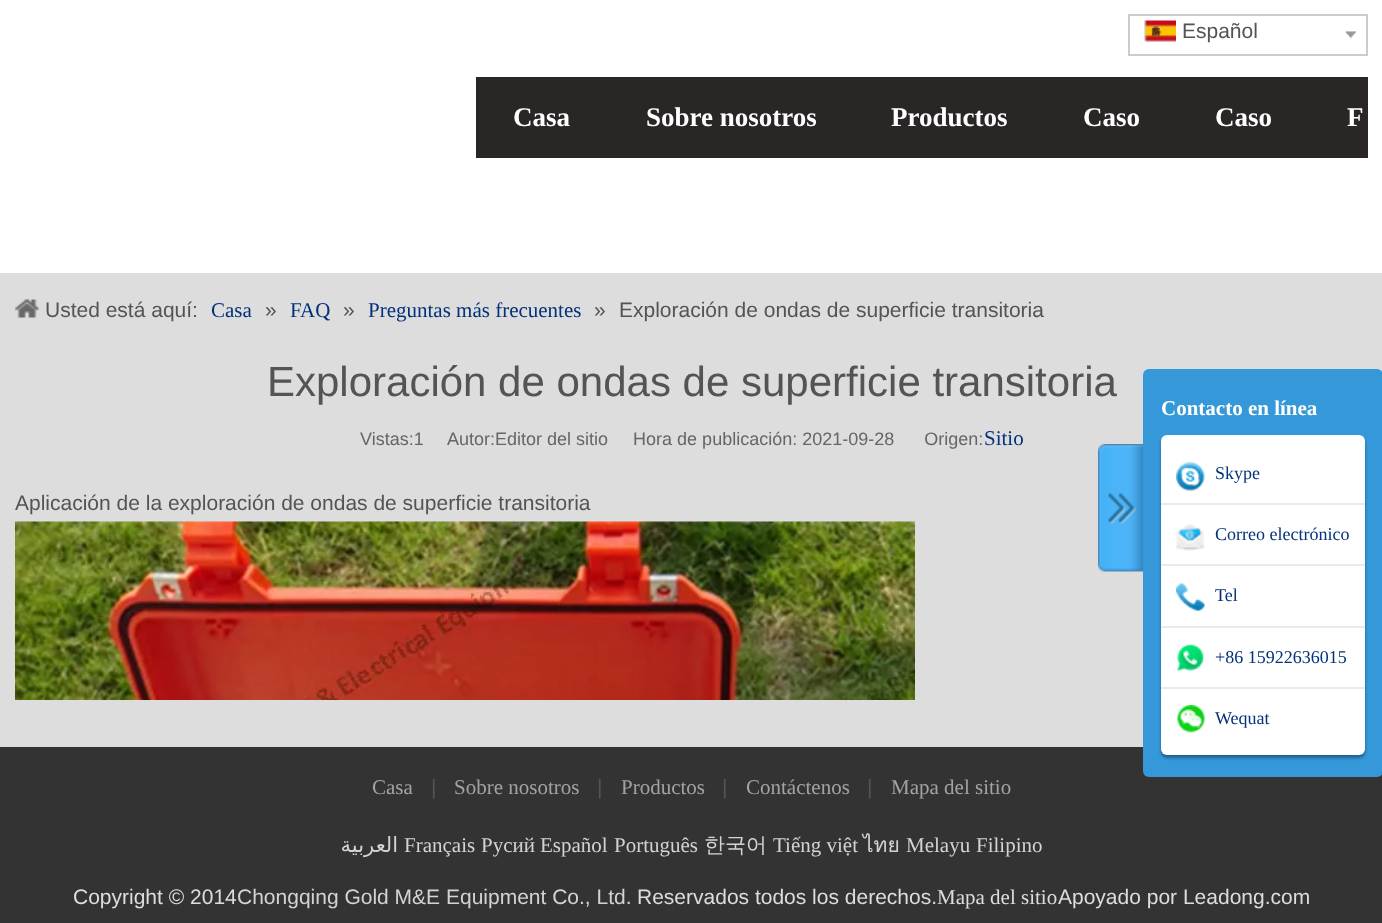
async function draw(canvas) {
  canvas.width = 1382;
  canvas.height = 923;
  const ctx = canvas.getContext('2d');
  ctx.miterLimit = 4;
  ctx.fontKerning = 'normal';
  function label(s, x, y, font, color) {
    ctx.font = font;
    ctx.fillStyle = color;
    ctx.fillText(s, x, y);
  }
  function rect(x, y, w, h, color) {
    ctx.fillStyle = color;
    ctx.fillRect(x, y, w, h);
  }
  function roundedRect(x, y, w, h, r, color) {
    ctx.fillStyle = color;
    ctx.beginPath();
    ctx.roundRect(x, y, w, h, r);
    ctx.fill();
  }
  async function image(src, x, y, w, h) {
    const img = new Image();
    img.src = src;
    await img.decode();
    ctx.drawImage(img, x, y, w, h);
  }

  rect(0, 0, 1382, 923, '#ddd');
  rect(0, 0, 1382, 273, '#fff');
  ctx.strokeStyle = '#ccc';
  ctx.lineWidth = 2;
  ctx.strokeRect(1129, 15, 238, 40);
  await image('assets/img1.png', 1144, 20, 32, 22);
  label('Español', 1182, 38, '21px Liberation Sans', '#545454');
  await image('assets/img2.png', 1345, 31, 12, 8);
  rect(476, 77, 892, 81, '#292625');
  label('Casa', 513, 126, 'bold 27px Liberation Serif', '#fff');
  label('Sobre nosotros', 646, 126, 'bold 27px Liberation Serif', '#fff');
  label('Productos', 891, 126, 'bold 27px Liberation Serif', '#fff');
  label('Caso', 1083, 126, 'bold 27px Liberation Serif', '#fff');
  label('Caso', 1215, 126, 'bold 27px Liberation Serif', '#fff');
  label('F', 1347, 126, 'bold 27px Liberation Serif', '#fff');
  await image('assets/img3.png', 15, 299, 24, 19);
  label('Usted está aquí:', 45, 317, '21px Liberation Sans', '#545454');
  label('Casa', 211, 317, '21px Liberation Serif', '#03317a');
  label('»', 265, 317, '21px Liberation Sans', '#545454');
  label('FAQ', 290, 317, '21px Liberation Serif', '#03317a');
  label('»', 343, 317, '21px Liberation Sans', '#545454');
  label('Preguntas más frecuentes', 368, 317, '21px Liberation Serif', '#03317a');
  label('»', 594, 317, '21px Liberation Sans', '#545454');
  label('Exploración de ondas de superficie transitoria', 619, 317, '21px Liberation Sans', '#545454');
  label('Exploración de ondas de superficie transitoria', 267, 396, '42px Liberation Sans', '#545454');
  label('Vistas:1', 360, 445, '18px Liberation Sans', '#666');
  label('Autor:Editor del sitio     Hora de publicación: 2021-09-28      Origen:', 447, 445, '18px Liberation Sans', '#666');
  label('Sitio', 984, 445, '21px Liberation Serif', '#03317a');
  label('Aplicación de la exploración de ondas de superficie transitoria', 15, 510, '21px Liberation Sans', '#545454');
  await image('assets/img4.png', 15, 521, 900, 179);
  await image('assets/img5.png', 1098, 444, 45, 128);
  rect(0, 747, 1382, 176, '#333');
  roundedRect(1143, 369, 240, 408, 6, '#3598d8');
  label('Contacto en línea', 1161, 415, 'bold 21px Liberation Serif', '#fff');
  ctx.fillStyle = '#0d3e5d99';
  ctx.filter = 'blur(1.5px)';
  ctx.beginPath();
  ctx.roundRect(1161, 438, 204, 320, 6);
  ctx.fill();
  ctx.filter = 'none';
  roundedRect(1161, 435, 204, 320, 6, '#fff');
  await image('assets/img6.png', 1176, 461, 29, 30);
  label('Skype', 1215, 479, '18px Liberation Serif', '#03317a');
  rect(1161, 503, 204, 2, '#eaeaea');
  await image('assets/img7.png', 1176, 524, 29, 27);
  label('Correo electrónico', 1215, 540, '18px Liberation Serif', '#03317a');
  rect(1161, 564, 204, 2, '#eaeaea');
  await image('assets/img8.png', 1176, 583, 29, 28);
  label('Tel', 1215, 601, '18px Liberation Serif', '#03317a');
  rect(1161, 626, 204, 2, '#eaeaea');
  await image('assets/img9.png', 1177, 644, 27, 27);
  label('+86 15922636015', 1215, 663, '18px Liberation Serif', '#03317a');
  rect(1161, 687, 204, 2, '#eaeaea');
  await image('assets/img10.png', 1177, 705, 28, 28);
  label('Wequat', 1215, 724, '18px Liberation Serif', '#03317a');
  label('Casa', 372, 794, '21px Liberation Serif', '#a3a3a3');
  label('|', 431, 794, '21px Liberation Sans', '#545454');
  label('Sobre nosotros', 454, 794, '21px Liberation Serif', '#a3a3a3');
  label('|', 597, 794, '21px Liberation Sans', '#545454');
  label('Productos', 621, 794, '21px Liberation Serif', '#a3a3a3');
  label('|', 722, 794, '21px Liberation Sans', '#545454');
  label('Contáctenos', 746, 794, '21px Liberation Serif', '#a3a3a3');
  label('|', 867, 794, '21px Liberation Sans', '#545454');
  label('Mapa del sitio', 891, 794, '21px Liberation Serif', '#a3a3a3');
  ctx.direction = 'rtl';
  label('العربية', 398, 852, '21px DejaVu Sans', '#d3d3d3');
  ctx.direction = 'ltr';
  label('Français', 404, 852, '21px Liberation Serif', '#d3d3d3');
  label('Pусий', 481, 852, '21px Liberation Serif', '#d3d3d3');
  label('Español', 540, 852, '21px Liberation Serif', '#d3d3d3');
  label('Português', 614, 852, '21px Liberation Serif', '#d3d3d3');
  label('한국어', 704, 852, '500 21px WenQuanYi Zen Hei', '#d3d3d3');
  label('Tiếng việt', 773, 852, '21px Liberation Serif', '#d3d3d3');
  label('ไทย', 863, 852, '21px Loma', '#d3d3d3');
  label('Melayu', 906, 852, '21px Liberation Serif', '#d3d3d3');
  label('Filipino', 976, 852, '21px Liberation Serif', '#d3d3d3');
  label('Copyright © 2014', 73, 904, '21px Liberation Sans', '#ddd');
  label('Chongqing Gold M&E Equipment Co., Ltd.', 237, 904, '21px Liberation Sans', '#d3d3d3');
  label('Reservados todos los derechos.', 637, 904, '21px Liberation Sans', '#ddd');
  label('Mapa del sitio', 937, 904, '21px Liberation Serif', '#ddd');
  label('Apoyado por Leadong.com', 1058, 904, '21px Liberation Sans', '#ddd');
}

draw(document.querySelector('canvas'));
